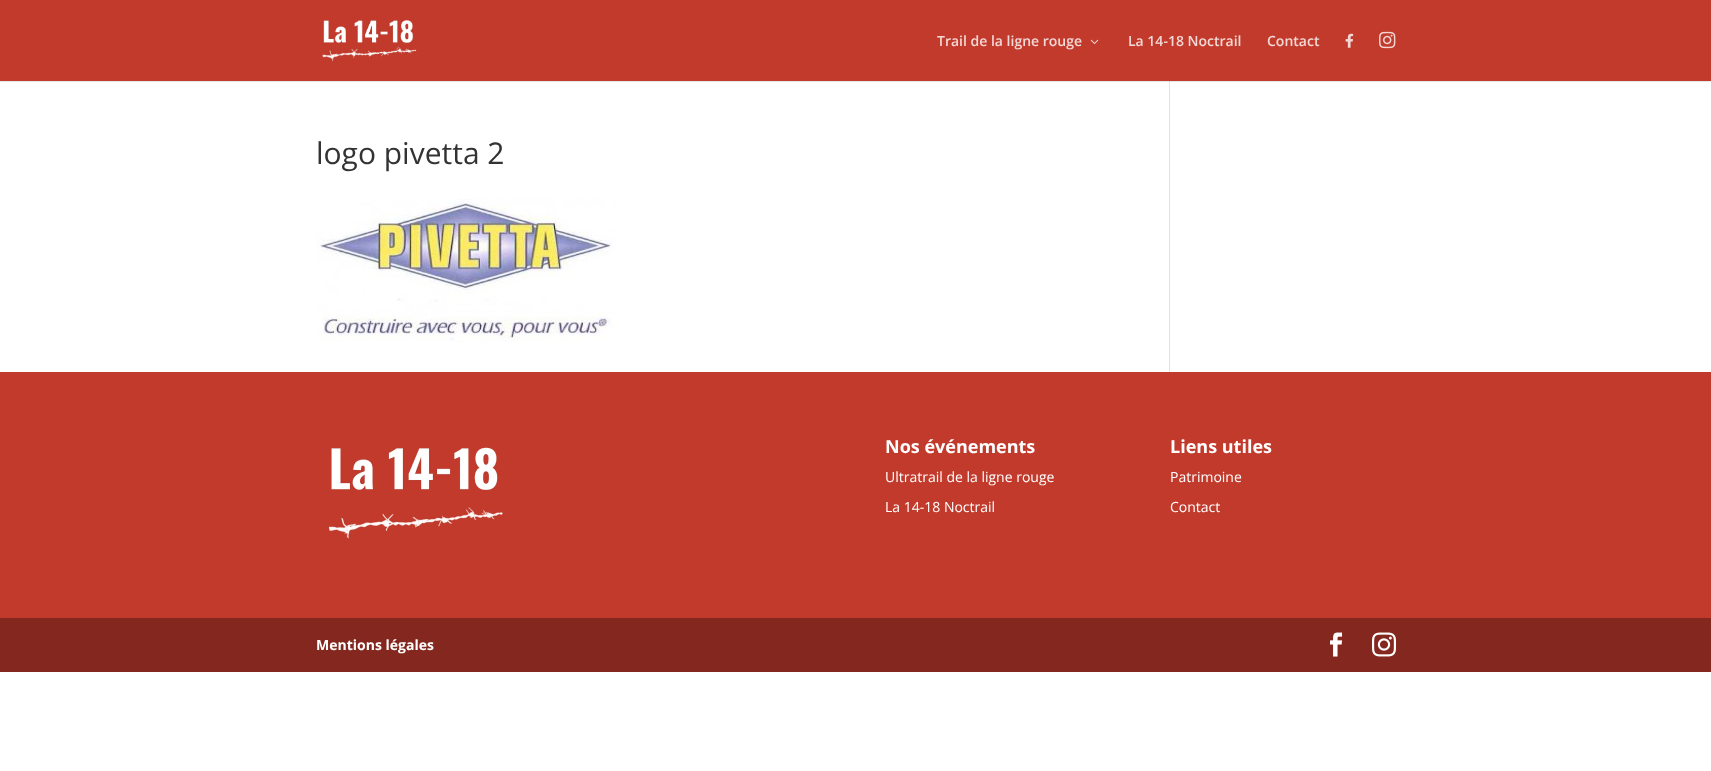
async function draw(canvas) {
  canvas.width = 1711;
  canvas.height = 771;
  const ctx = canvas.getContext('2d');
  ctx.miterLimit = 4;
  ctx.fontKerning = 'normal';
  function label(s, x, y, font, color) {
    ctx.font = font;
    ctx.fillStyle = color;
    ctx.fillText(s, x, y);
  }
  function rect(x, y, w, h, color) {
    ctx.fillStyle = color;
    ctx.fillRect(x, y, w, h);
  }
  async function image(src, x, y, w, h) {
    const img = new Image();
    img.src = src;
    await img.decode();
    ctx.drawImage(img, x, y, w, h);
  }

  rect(0, 0, 1711, 771, '#fff');
  rect(0, 81, 1711, 1, '#e6e6e6');
  rect(1169, 80, 1, 292, '#e2e2e2');
  rect(0, 0, 1711, 81, '#c23a2c');
  await image('assets/img1.png', 322, 20, 95, 42);
  label('Trail de la ligne rouge', 937, 46, '600 14px Open Sans', '#f3d8d5');
  await image('assets/img2.png', 1090, 39, 9, 5);
  label('La 14-18 Noctrail', 1128, 46, '600 14px Open Sans', '#f3d8d5');
  label('Contact', 1267, 46, '600 14px Open Sans', '#f3d8d5');
  await image('assets/img3.png', 1345, 33, 9, 15);
  await image('assets/img4.png', 1379, 31, 17, 18);
  label('logo pivetta 2', 316, 164, '30px Open Sans', '#333');
  await image('assets/img5.png', 316, 198, 300, 144);
  rect(1169, 81, 1, 1, '#cbcbcb');
  rect(0, 372, 1711, 246, '#c23a2c');
  await image('assets/img6.png', 328, 447, 175, 92);
  label('Nos événements', 885, 453, 'bold 18px Open Sans', '#fff');
  label('Ultratrail de la ligne rouge', 885, 482, '14px Open Sans', '#fff');
  label('La 14-18 Noctrail', 885, 512, '14px Open Sans', '#fff');
  label('Liens utiles', 1170, 453, 'bold 18px Open Sans', '#fff');
  label('Patrimoine', 1170, 482, '14px Open Sans', '#fff');
  label('Contact', 1170, 512, '14px Open Sans', '#fff');
  rect(0, 618, 1711, 54, '#84271e');
  label('Mentions légales', 316, 650, 'bold 14px Open Sans', '#fff');
  await image('assets/img7.png', 1330, 632, 13, 25);
  await image('assets/img8.png', 1372, 632, 24, 25);
}

draw(document.querySelector('canvas'));
